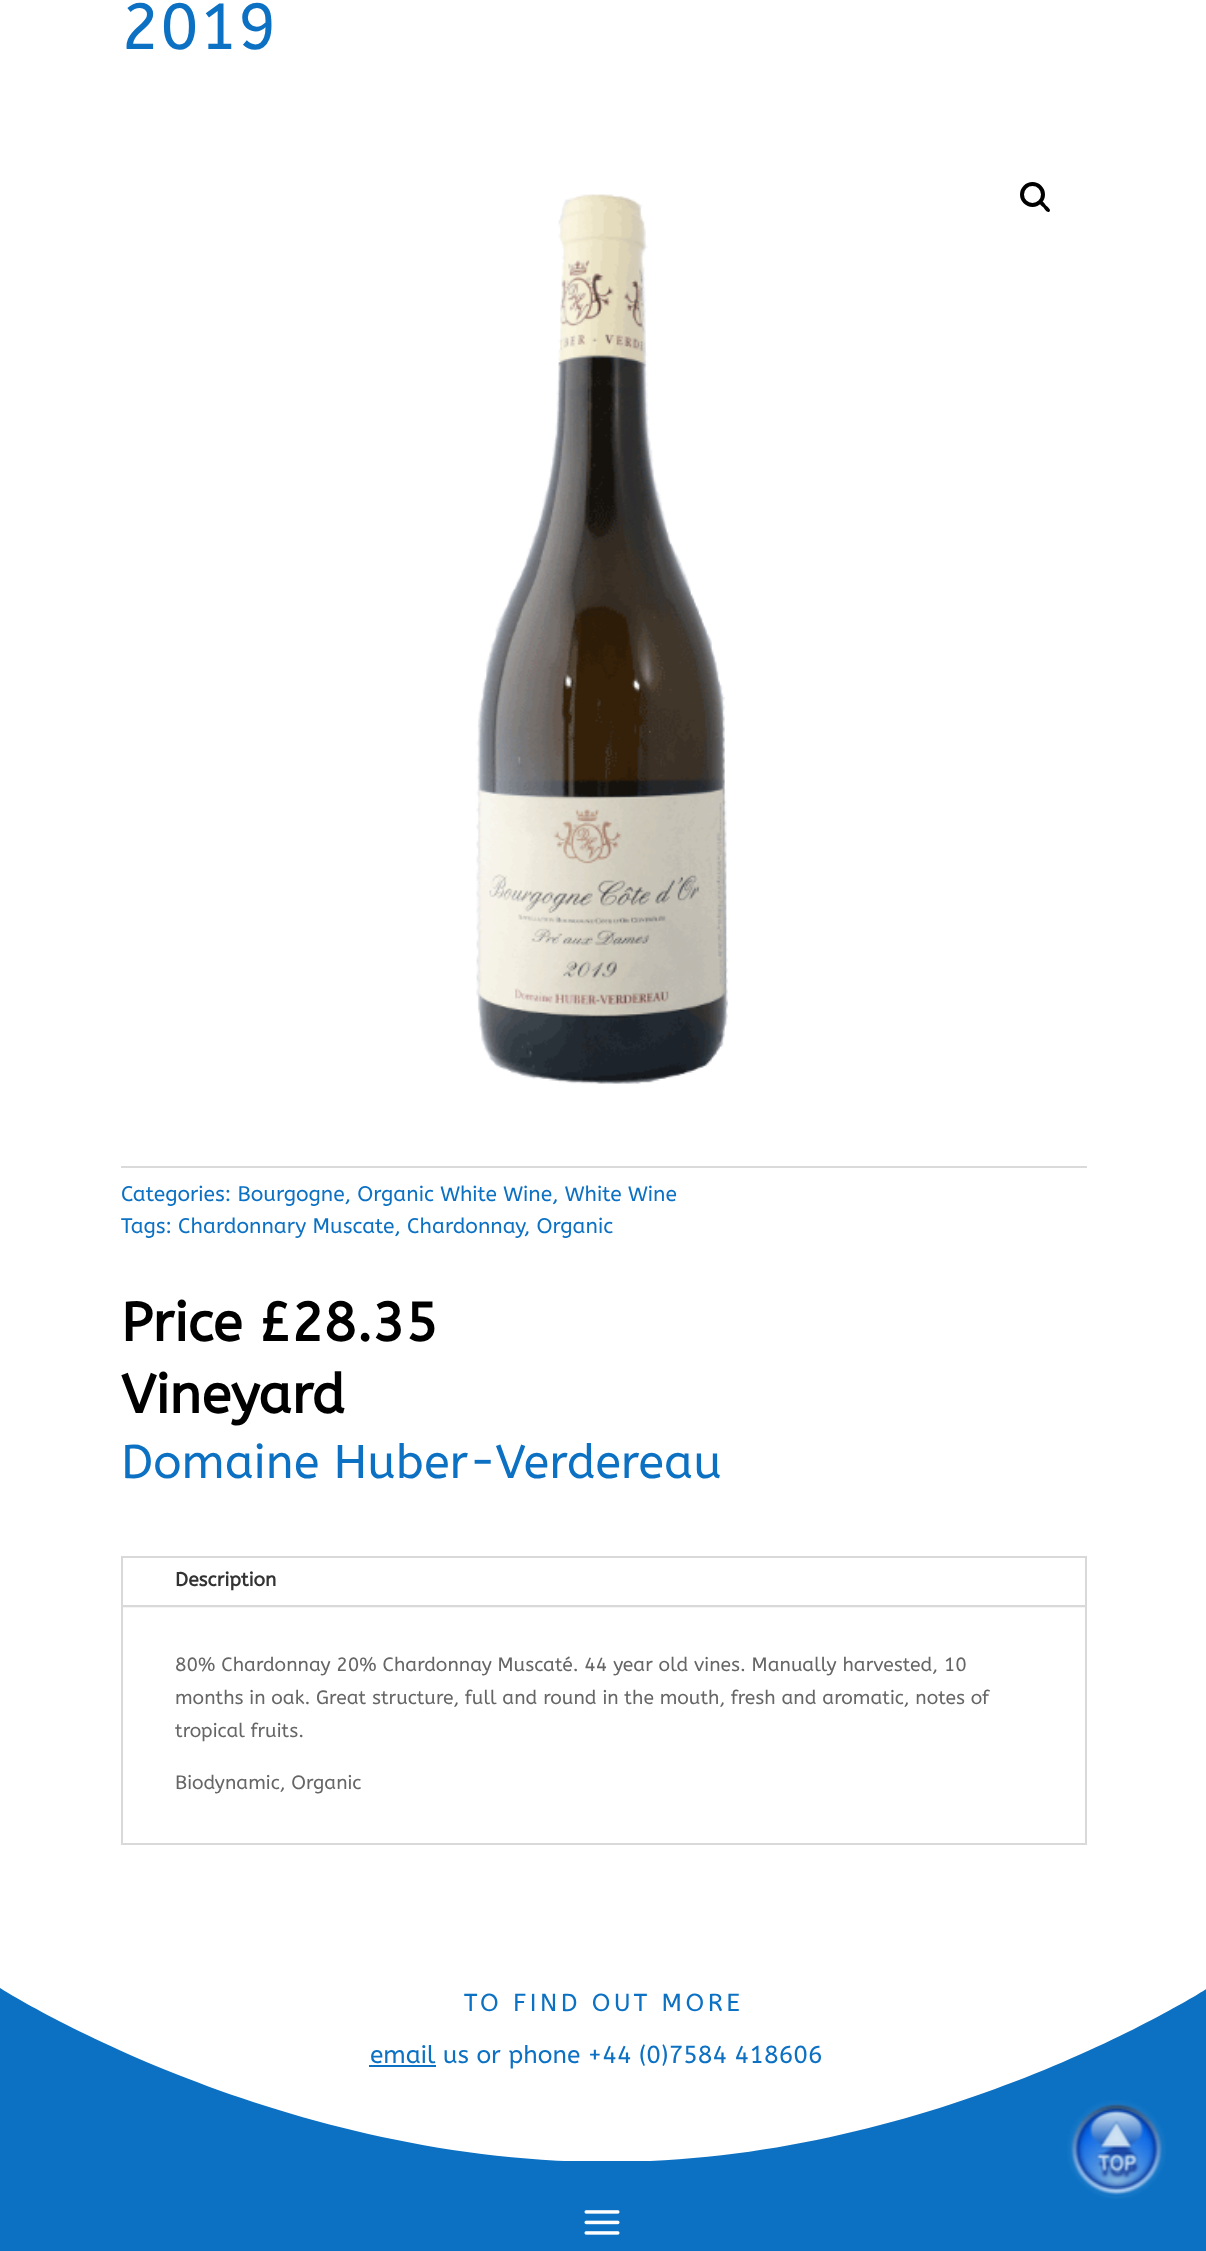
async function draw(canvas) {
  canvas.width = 1206;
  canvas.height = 2251;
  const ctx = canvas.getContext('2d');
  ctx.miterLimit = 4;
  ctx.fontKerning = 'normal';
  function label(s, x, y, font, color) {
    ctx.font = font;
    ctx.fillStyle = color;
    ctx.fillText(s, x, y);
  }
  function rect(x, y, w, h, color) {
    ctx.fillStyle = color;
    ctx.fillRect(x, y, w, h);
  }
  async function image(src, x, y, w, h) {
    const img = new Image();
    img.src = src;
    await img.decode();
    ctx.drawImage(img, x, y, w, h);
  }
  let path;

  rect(0, 0, 1206, 2251, '#fff');
  label('2019', 121, 49, '65px ABeeZee', '#0c71c3');
  await image('assets/img1.png', 476, 194, 253, 890);
  ctx.beginPath();
  ctx.arc(1032.5, 194.5, 10.5, 0, 2 * Math.PI);
  ctx.strokeStyle = '#000';
  ctx.lineWidth = 4;
  ctx.stroke();
  ctx.fillStyle = '#000';
  path = new Path2D('M1040 201.5C1042 199.5 1045 204 1046 205.5C1047 206.5 1051.5 209.5 1049.5 211.5C1047.5 213.5 1044.5 209 1043.5 207.5C1042.5 206.5 1038 203.5 1040 201.5Z');
  ctx.fill(path);
  rect(121, 1166, 966, 2, '#dadada');
  label('Categories: Bourgogne, Organic White Wine, White Wine', 121, 1201, '21px ABeeZee', '#0c71c3');
  label('Tags: Chardonnary Muscate, Chardonnay', 121, 1233, '21px ABeeZee', '#0c71c3');
  label(', Organic', 524, 1233, '21px ABeeZee', '#0c71c3');
  label('Price £28.35', 121, 1341, 'bold 54.25px ABeeZee', '#000');
  label('Vineyard', 121, 1413, 'bold 54.25px ABeeZee', '#000');
  label('Domaine Huber-Verdereau', 121, 1478, '47.25px ABeeZee', '#0c71c3');
  ctx.strokeStyle = '#d9d9d9';
  ctx.lineWidth = 2;
  ctx.strokeRect(122, 1557, 964, 287);
  rect(123, 1607, 962, 1, '#f4f4f4');
  rect(123, 1605, 962, 2, '#d9d9d9');
  label('Description', 175, 1586, 'bold 19.25px ABeeZee', '#333');
  label('80% Chardonnay 20% Chardonnay Muscaté. 44 year old vines. Manually harvested, 10', 175, 1671, '19.25px ABeeZee', '#666');
  label('months in oak. Great structure, full and round in the mouth, fresh and aromatic, notes of', 175, 1704, '19.25px ABeeZee', '#666');
  label('tropical fruits.', 175, 1737, '19.25px ABeeZee', '#666');
  label('Biodynamic, Organic', 175, 1789, '19.25px ABeeZee', '#666');
  ctx.fillStyle = '#0c71c3';
  path = new Path2D('M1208 2163V1988C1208 1988 937 2163 604 2162C270 2160 0 1988 0 1988V2163Z');
  ctx.fill(path);
  ctx.letterSpacing = '3.5px';
  label('TO FIND OUT MORE', 464, 2011, '24.5px ABeeZee', '#0c71c3');
  rect(369, 2065, 67, 2, '#0c71c3');
  ctx.letterSpacing = '0px';
  label('email us or phone +44 (0)7584 418606', 370, 2063, '24.5px ABeeZee', '#0c71c3');
  rect(0, 2161, 1206, 90, '#0c71c3');
  await image('assets/img2.png', 584, 2210, 36, 25);
  await image('assets/img3.png', 1067, 2100, 99, 99);
}

draw(document.querySelector('canvas'));
